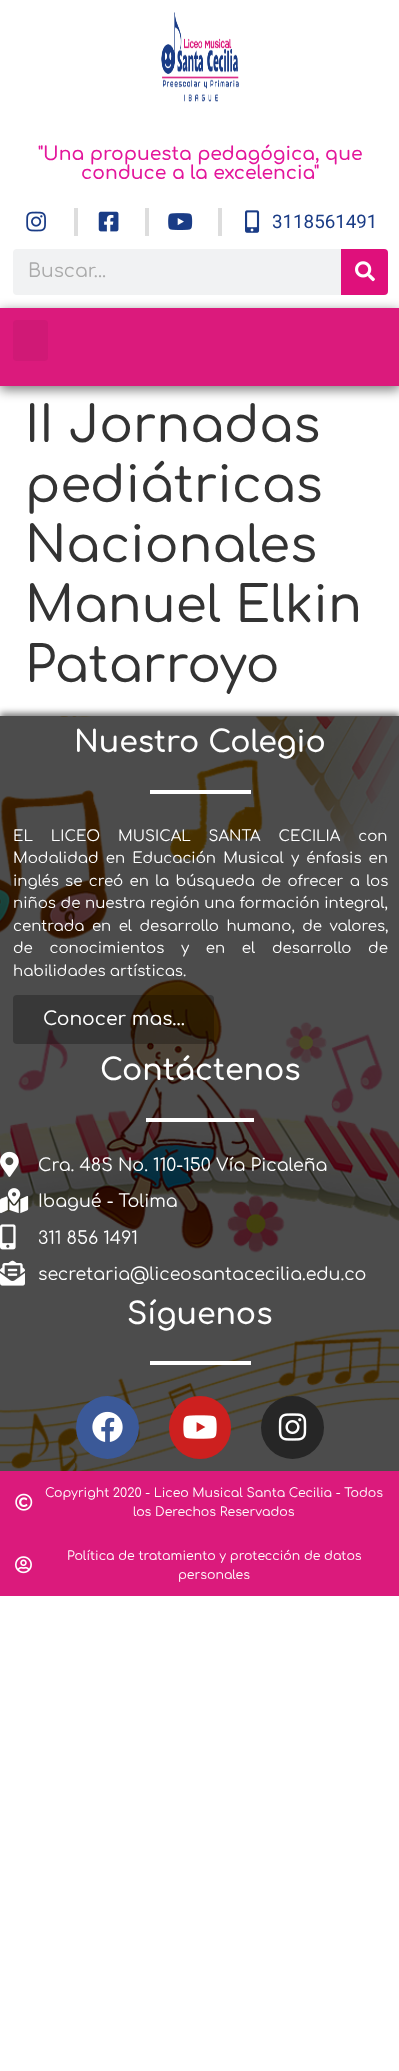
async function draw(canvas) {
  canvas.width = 399;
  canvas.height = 2071;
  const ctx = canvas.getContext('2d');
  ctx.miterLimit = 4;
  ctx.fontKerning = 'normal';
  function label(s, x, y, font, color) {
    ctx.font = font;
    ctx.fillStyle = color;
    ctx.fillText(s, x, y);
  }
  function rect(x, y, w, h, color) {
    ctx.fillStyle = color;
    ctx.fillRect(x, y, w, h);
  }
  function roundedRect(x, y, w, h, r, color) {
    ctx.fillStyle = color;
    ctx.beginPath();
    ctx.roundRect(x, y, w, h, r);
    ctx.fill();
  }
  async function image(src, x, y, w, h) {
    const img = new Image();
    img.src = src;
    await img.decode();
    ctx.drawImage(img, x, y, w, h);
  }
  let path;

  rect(0, 0, 399, 2071, '#fff');
  await image('assets/img1.png', 161, 12, 78, 90);
  label('"Una propuesta pedagógica, que', 38, 160, '600 18.75px Comfortaa', '#e3169b');
  label('conduce a la excelencia"', 81, 179, '600 18.75px Comfortaa', '#e3169b');
  await image('assets/img2.png', 26, 211, 20, 21);
  rect(74, 208, 4, 28, '#ddd');
  await image('assets/img3.png', 98, 211, 21, 21);
  rect(145, 208, 4, 28, '#ddd');
  await image('assets/img4.png', 168, 213, 25, 17);
  rect(218, 208, 4, 28, '#ddd');
  await image('assets/img5.png', 245, 210, 15, 23);
  label('3118561491', 272, 228, '18.75px Roboto', '#1a3c86');
  roundedRect(13, 249, 375, 46, 4, '#f1f2f3');
  label('Buscar...', 28, 277, '18.75px Comfortaa', '#aaa');
  ctx.fillStyle = '#df107b';
  ctx.beginPath();
  ctx.roundRect(341, 249, 47, 46, [0, 4, 4, 0]);
  ctx.fill();
  await image('assets/img6.png', 355, 261, 20, 21);
  ctx.fillStyle = '#00000080';
  ctx.filter = 'blur(6px)';
  ctx.beginPath();
  ctx.rect(0, 311, 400, 79);
  ctx.fill();
  ctx.filter = 'none';
  rect(0, 308, 399, 78, '#db1a7c');
  roundedRect(13, 320, 35, 41, 4, '#d01976');
  label('II Jornadas', 25, 442, '500 50px Comfortaa', '#333');
  label('pediátricas', 25, 502, '500 50px Comfortaa', '#333');
  label('Nacionales', 25, 562, '500 50px Comfortaa', '#333');
  label('Manuel Elkin', 25, 622, '500 50px Comfortaa', '#333');
  label('Patarroyo', 25, 682, '500 50px Comfortaa', '#333');
  ctx.save();
  path = new Path2D('M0 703H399V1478H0ZM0 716H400V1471H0Z');
  ctx.clip(path, 'evenodd');
  ctx.fillStyle = '#00000080';
  ctx.filter = 'blur(3px)';
  ctx.beginPath();
  ctx.rect(0, 713, 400, 755);
  ctx.fill();
  ctx.filter = 'none';
  ctx.restore();
  await image('assets/img7.png', 0, 716, 399, 755);
  rect(0, 716, 399, 755, '#000000b3');
  label('Nuestro Colegio', 74, 752, '600 30px Comfortaa', '#fff');
  rect(150, 790, 101, 4, '#fff');
  ctx.wordSpacing = '13.5px';
  label('EL LICEO MUSICAL SANTA CECILIA con', 13, 841, '15px Comfortaa', '#fff');
  ctx.wordSpacing = '2.75px';
  label('Modalidad en Educación Musical y énfasis en', 13, 863, '15px Comfortaa', '#fff');
  ctx.wordSpacing = '2px';
  label('inglés se creó en la búsqueda de ofrecer a los', 13, 886, '15px Comfortaa', '#fff');
  ctx.wordSpacing = '0.25px';
  label('niños de nuestra región una formación integral,', 13, 908, '15px Comfortaa', '#fff');
  ctx.wordSpacing = '3px';
  label('centrada en el desarrollo humano, de valores,', 13, 931, '15px Comfortaa', '#fff');
  ctx.wordSpacing = '12.25px';
  label('de conocimientos y en el desarrollo de', 13, 953, '15px Comfortaa', '#fff');
  ctx.wordSpacing = '0px';
  label('habilidades artísticas.', 13, 976, '15px Comfortaa', '#fff');
  roundedRect(13, 995, 201, 49, 4, '#00000042');
  label('Conocer mas...', 43, 1025, '500 18.75px Comfortaa', '#fff');
  label('Contáctenos', 100, 1080, '600 30px Comfortaa', '#fff');
  rect(146, 1118, 108, 4, '#fff');
  await image('assets/img8.png', 0, 1151, 19, 26);
  label('Cra. 48S No. 110-150 Vía Picaleña', 38, 1171, '17.5px Comfortaa', '#fff');
  await image('assets/img9.png', 0, 1188, 29, 26);
  label('Ibagué - Tolima', 38, 1207, '17.5px Comfortaa', '#fff');
  await image('assets/img10.png', 0, 1224, 16, 26);
  label('311 856 1491', 38, 1244, '17.5px Comfortaa', '#fff');
  await image('assets/img11.png', 0, 1260, 25, 26);
  label('secretaria@liceosantacecilia.edu.co', 38, 1280, '17.5px Comfortaa', '#fff');
  label('Síguenos', 127, 1324, '600 30px Comfortaa', '#fff');
  rect(150, 1361, 101, 4, '#fff');
  ctx.fillStyle = '#3b5998';
  ctx.beginPath();
  ctx.arc(107.5, 1427.5, 31.5, 0, 2 * Math.PI);
  ctx.fill();
  await image('assets/img12.png', 92, 1411, 31, 31);
  roundedRect(169, 1396, 62, 63, 31, '#cd201f');
  await image('assets/img13.png', 183, 1415, 34, 24);
  ctx.fillStyle = '#262626';
  ctx.beginPath();
  ctx.arc(292.5, 1427.5, 31.5, 0, 2 * Math.PI);
  ctx.fill();
  await image('assets/img14.png', 278, 1413, 29, 28);
  rect(0, 1471, 399, 125, '#db1a7c');
  await image('assets/img15.png', 15, 1493, 18, 18);
  label('Copyright 2020 - Liceo Musical Santa Cecilia - Todos', 45, 1497, '12.5px Comfortaa', '#fff');
  label('los Derechos Reservados', 133, 1516, '12.5px Comfortaa', '#fff');
  await image('assets/img16.png', 15, 1556, 17, 18);
  label('Política de tratamiento y protección de datos', 67, 1560, '12.5px Comfortaa', '#fff');
  label('personales', 178, 1579, '12.5px Comfortaa', '#fff');
}

draw(document.querySelector('canvas'));
